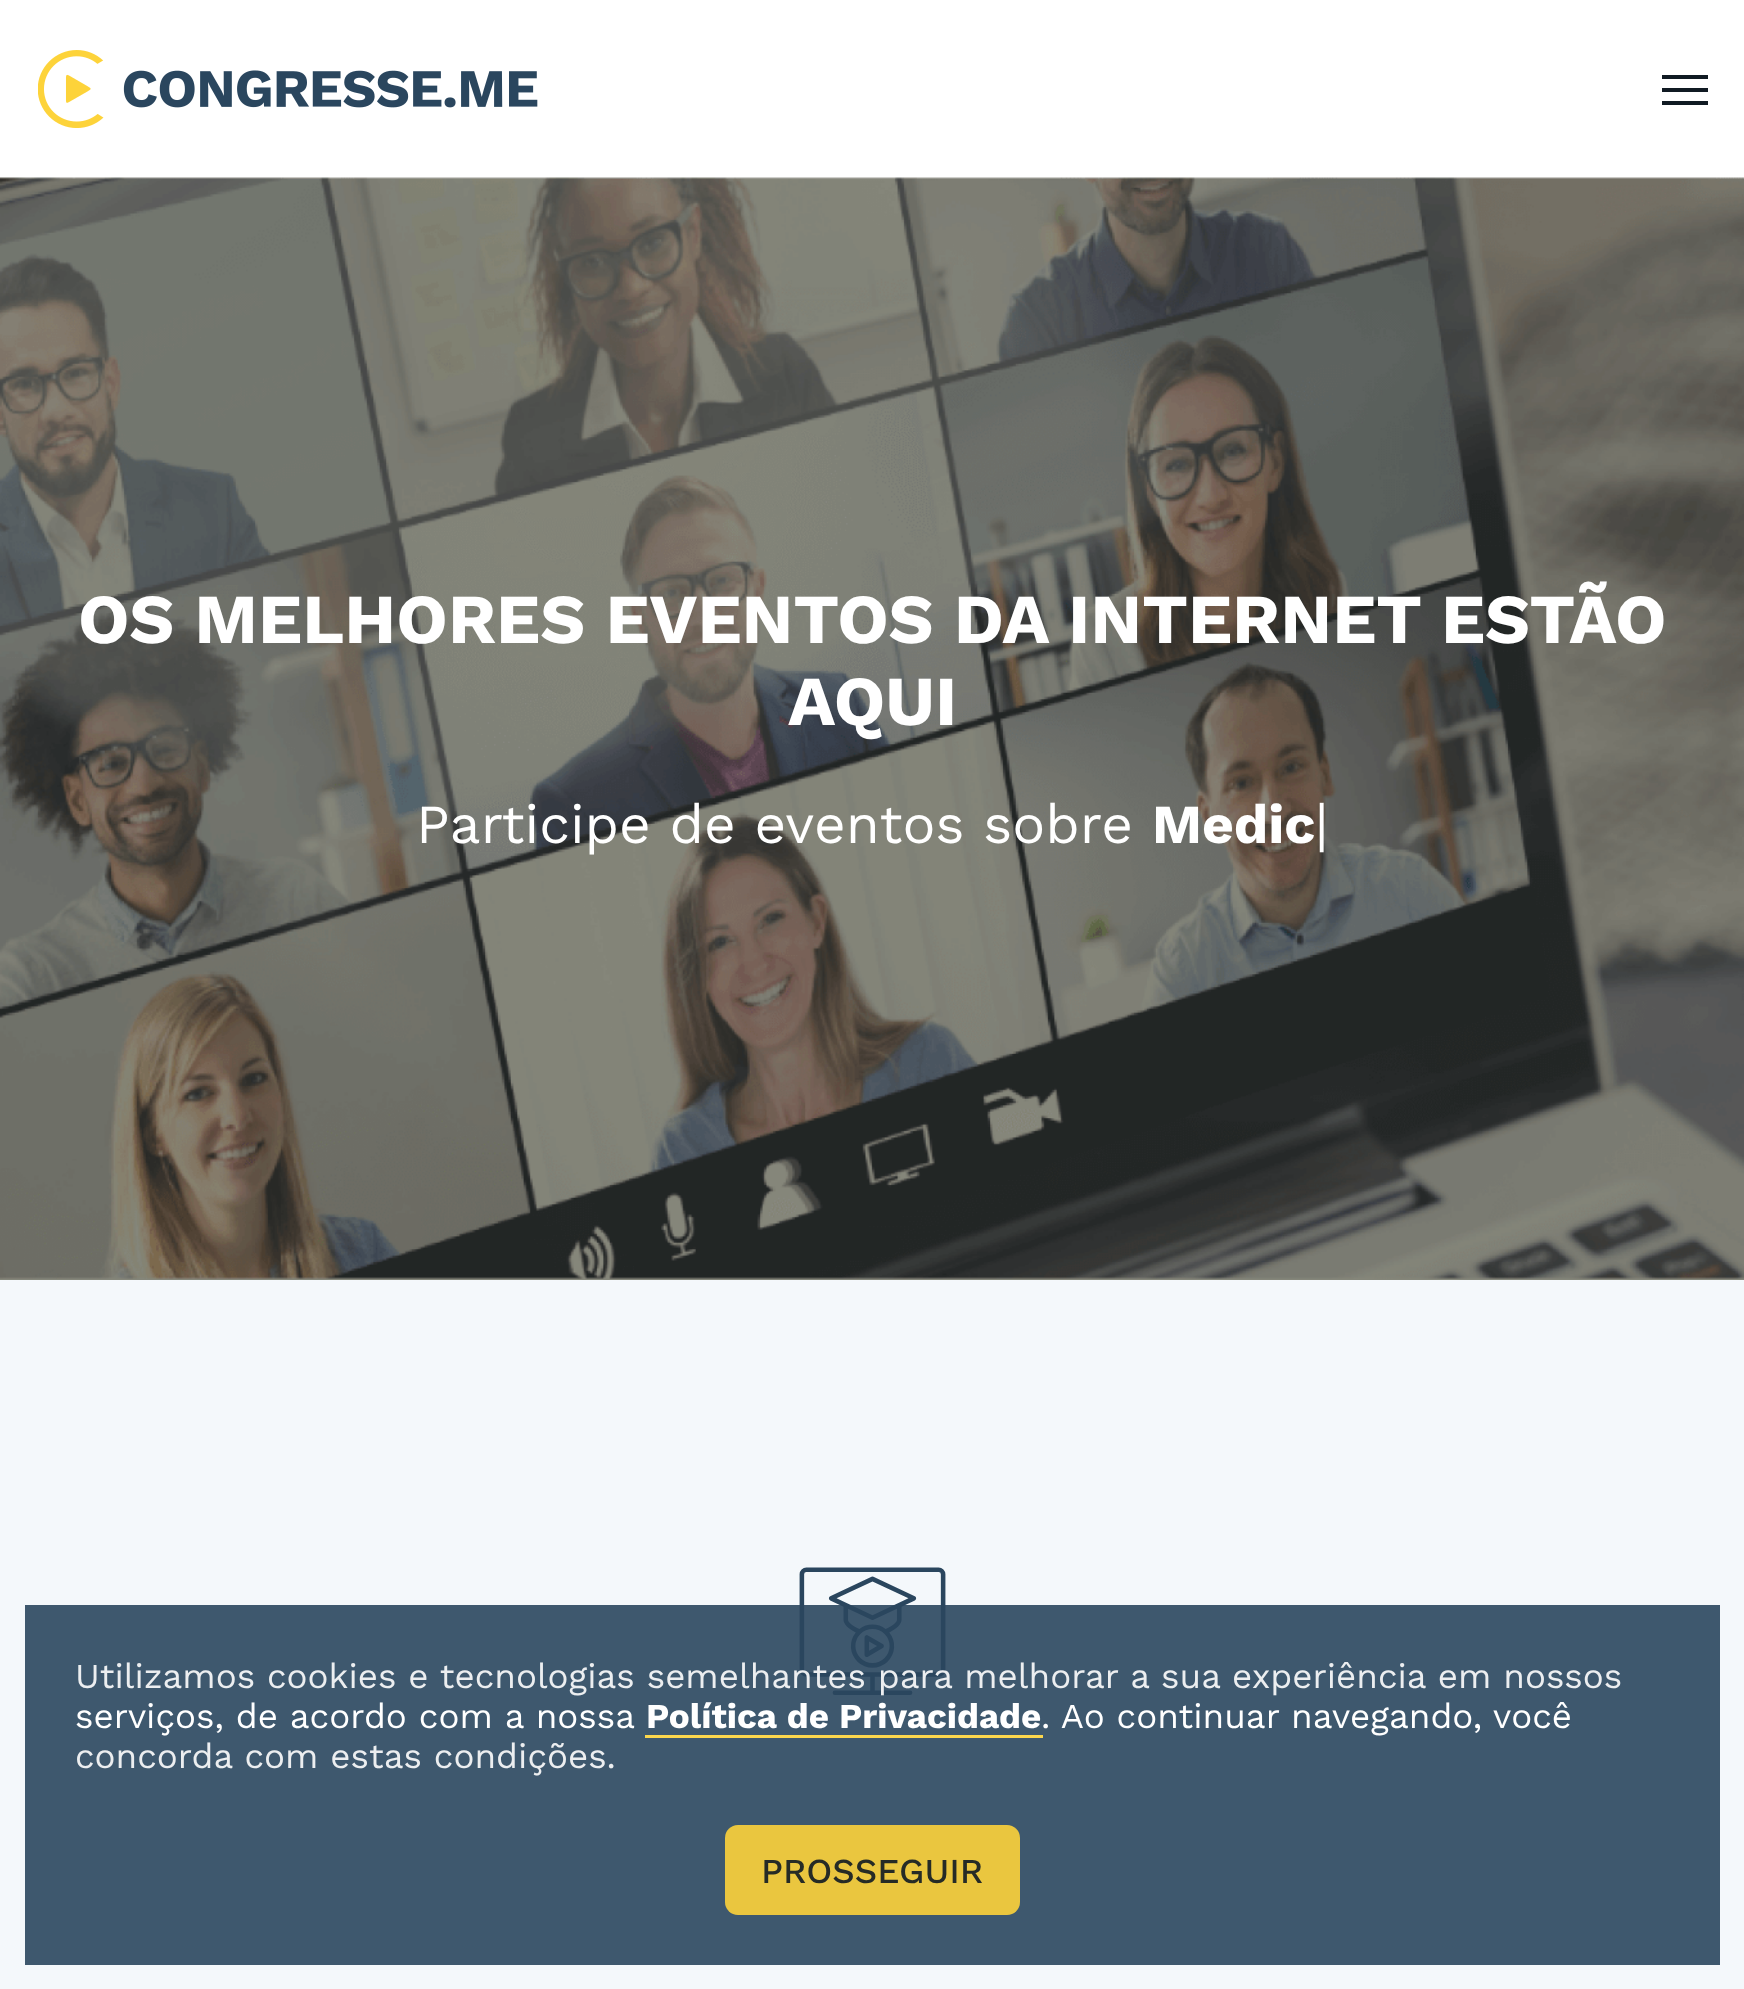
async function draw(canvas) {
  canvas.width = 1744;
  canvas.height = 1989;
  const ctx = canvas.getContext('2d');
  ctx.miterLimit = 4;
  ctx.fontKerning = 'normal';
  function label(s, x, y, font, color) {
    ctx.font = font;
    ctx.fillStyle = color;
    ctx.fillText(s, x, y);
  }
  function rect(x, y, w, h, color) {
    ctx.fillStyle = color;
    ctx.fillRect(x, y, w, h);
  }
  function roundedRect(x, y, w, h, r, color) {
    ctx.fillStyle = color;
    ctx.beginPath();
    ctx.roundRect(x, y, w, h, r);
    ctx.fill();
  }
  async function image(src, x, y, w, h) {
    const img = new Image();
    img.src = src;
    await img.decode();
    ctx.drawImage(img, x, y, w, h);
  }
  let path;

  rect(0, 0, 1744, 1989, '#fff');
  await image('assets/img1.png', 38, 50, 500, 78);
  ctx.fillStyle = '#101a23';
  path = new Path2D('M1662 77V79H1708V75H1662ZM1662 90V92H1708V88H1662ZM1662 103V105H1708V101H1662Z');
  ctx.fill(path);
  await image('assets/img2.png', 0, 177, 1744, 1103);
  label('OS MELHORES EVENTOS DA INTERNET ESTÃO', 78, 643, 'bold 70px Work Sans', '#fff');
  label('AQUI', 788, 725, 'bold 70px Work Sans', '#fff');
  label('Participe de eventos sobre', 416, 843, '55px Work Sans', '#fff');
  label('Medic', 1152, 843, 'bold 55px Work Sans', '#fff');
  label('|', 1315, 843, '55px Work Sans', '#fff');
  rect(0, 1280, 1744, 709, '#f4f8fb');
  await image('assets/img3.png', 799, 1567, 147, 128);
  rect(25, 1605, 1695, 360, '#2a465ee6');
  label('Utilizamos cookies e tecnologias semelhantes para melhorar a sua experiência em nossos', 75, 1688, '35px Work Sans', '#eceef0');
  label('serviços, de acordo com a nossa', 75, 1728, '35px Work Sans', '#fff');
  label('Política de Privacidade', 646, 1728, 'bold 35px Work Sans', '#fff');
  rect(645, 1735, 398, 3, '#fcd74d');
  label('. Ao continuar navegando, você', 1041, 1728, '35px Work Sans', '#fff');
  label('concorda com estas condições.', 75, 1768, '35px Work Sans', '#eceef0');
  roundedRect(725, 1825, 295, 90, 13, '#fdd33ae6');
  label('PROSSEGUIR', 761, 1883, '500 35px Work Sans', '#262b26');
}

draw(document.querySelector('canvas'));
